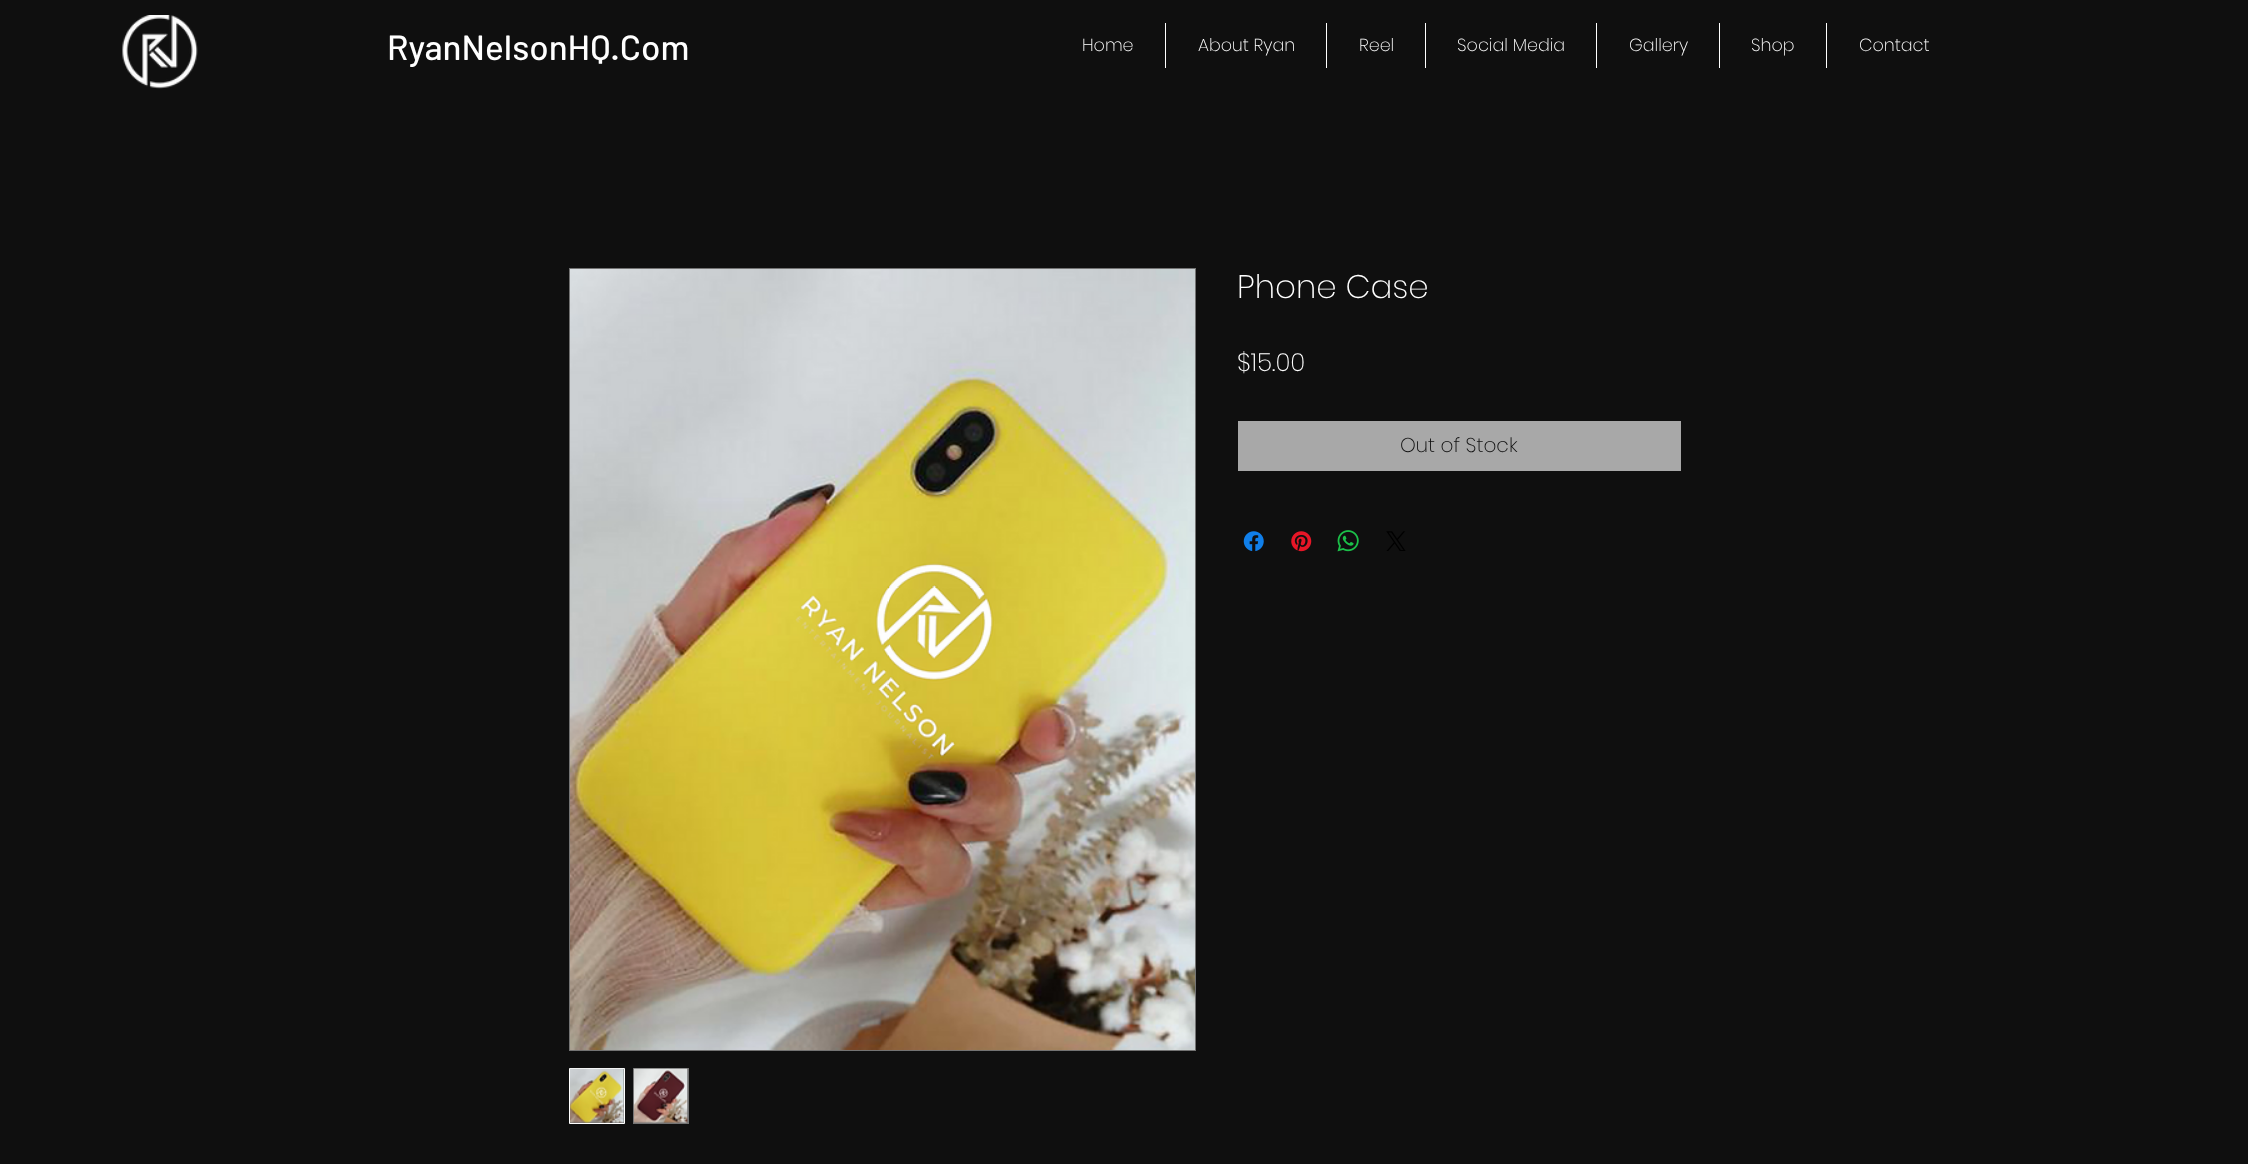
async function draw(canvas) {
  canvas.width = 2248;
  canvas.height = 1164;
  const ctx = canvas.getContext('2d');
  ctx.miterLimit = 4;
  ctx.fontKerning = 'normal';
  function label(s, x, y, font, color) {
    ctx.font = font;
    ctx.fillStyle = color;
    ctx.fillText(s, x, y);
  }
  function rect(x, y, w, h, color) {
    ctx.fillStyle = color;
    ctx.fillRect(x, y, w, h);
  }
  async function image(src, x, y, w, h) {
    const img = new Image();
    img.src = src;
    await img.decode();
    ctx.drawImage(img, x, y, w, h);
  }

  rect(0, 0, 2248, 1164, '#0f0f0f');
  label('RyanNelsonHQ.Com', 387, 60, '500 35px Barlow', '#fff');
  await image('assets/img1.png', 122, 15, 76, 74);
  label('Home', 1082, 51, '200 17.5px Poppins', '#fff');
  rect(1165, 23, 1, 45, '#fff');
  label('About Ryan', 1198, 51, '200 17.5px Poppins', '#fff');
  rect(1326, 23, 1, 45, '#fff');
  label('Reel', 1359, 51, '200 17.5px Poppins', '#fff');
  rect(1425, 23, 1, 45, '#fff');
  label('Social Media', 1457, 51, '200 17.5px Poppins', '#fff');
  rect(1596, 23, 1, 45, '#fff');
  label('Gallery', 1629, 51, '200 17.5px Poppins', '#fff');
  rect(1719, 23, 1, 45, '#fff');
  label('Shop', 1751, 51, '200 17.5px Poppins', '#fff');
  rect(1826, 23, 1, 45, '#fff');
  label('Contact', 1859, 51, '200 17.5px Poppins', '#fff');
  ctx.strokeStyle = '#737373';
  ctx.strokeRect(569.5, 268.5, 626, 782);
  await image('assets/img2.png', 570, 269, 625, 781);
  ctx.fillStyle = '#737373';
  ctx.beginPath();
  ctx.rect(569.5, 1068.5, 55, 55);
  ctx.fill();
  ctx.strokeStyle = '#fff';
  ctx.stroke();
  await image('assets/img3.png', 570, 1068, 54, 55);
  rect(633, 1068, 56, 56, '#737373');
  await image('assets/img4.png', 633, 1068, 55, 55);
  label('Phone Case', 1237, 298, '200 32.5px Poppins', '#fff');
  label('$15.00', 1237, 371, '200 25px Poppins', '#fff');
  rect(1238, 421, 443, 50, '#a8a8a8');
  label('Out of Stock', 1400, 452, '200 20px Poppins', '#0f0f0f');
  await image('assets/img5.png', 1243, 531, 21, 21);
  await image('assets/img6.png', 1291, 531, 21, 21);
  await image('assets/img7.png', 1337, 530, 22, 22);
  await image('assets/img8.png', 1386, 531, 20, 20);
}

draw(document.querySelector('canvas'));
